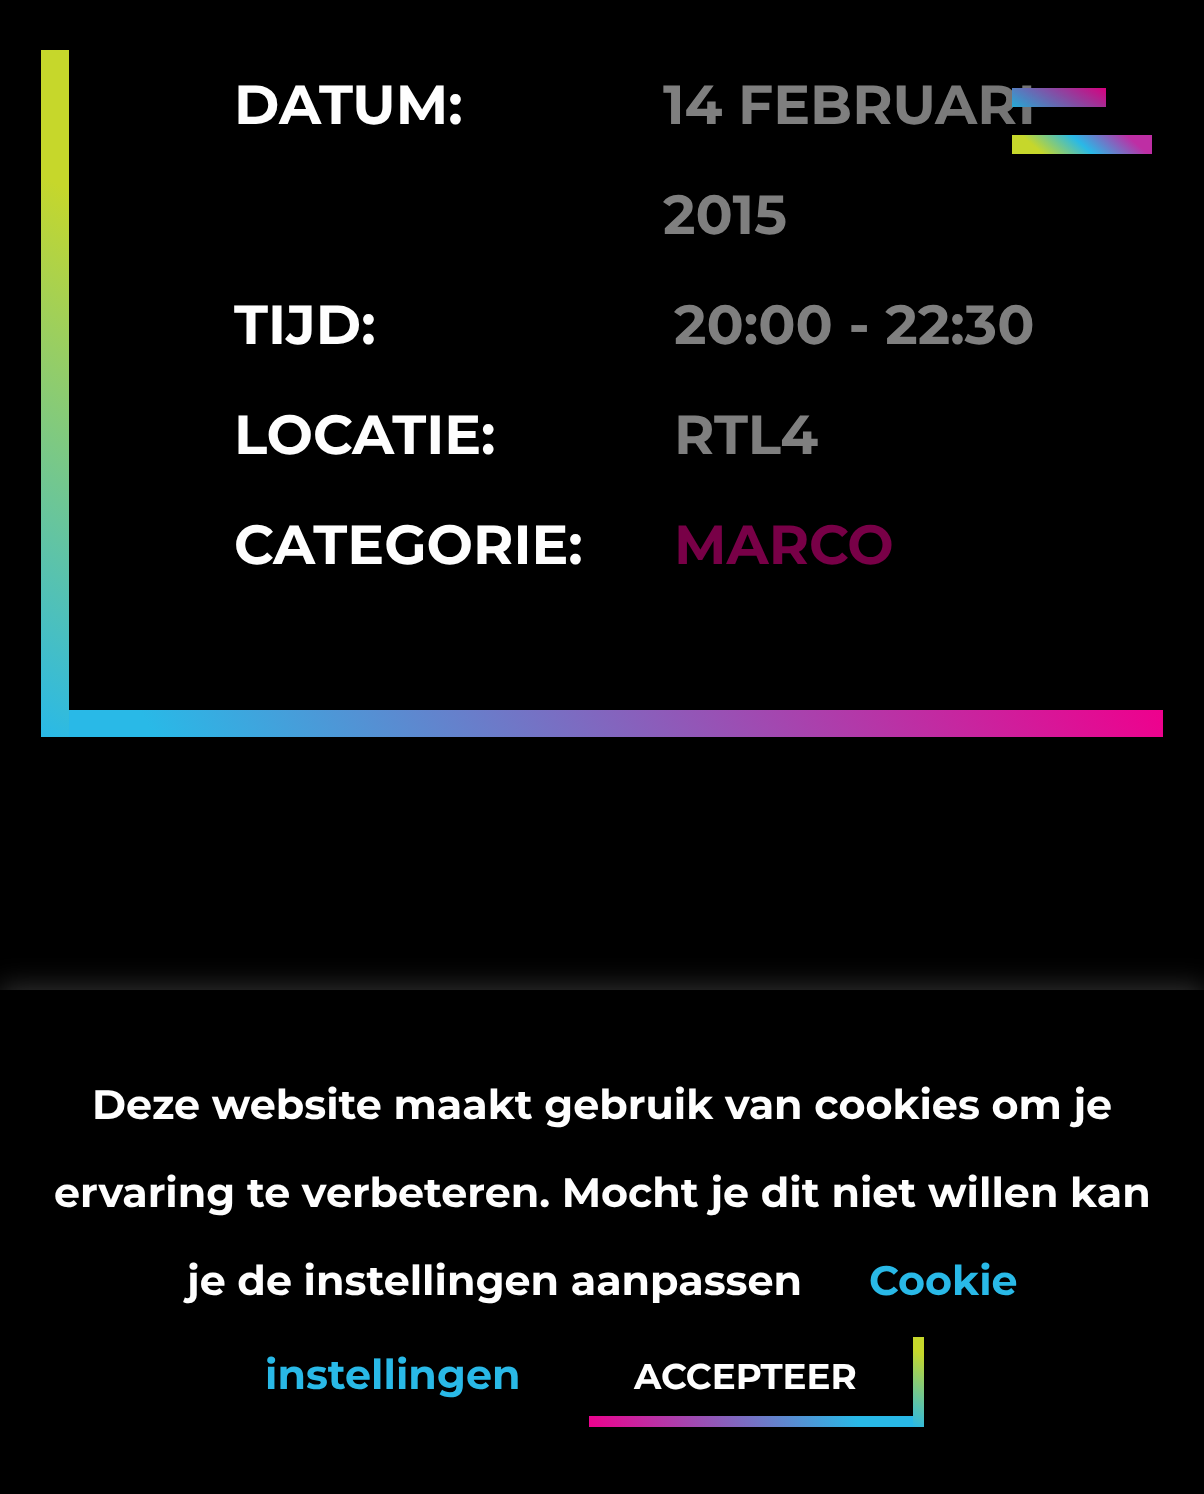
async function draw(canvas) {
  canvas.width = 1204;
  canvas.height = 1494;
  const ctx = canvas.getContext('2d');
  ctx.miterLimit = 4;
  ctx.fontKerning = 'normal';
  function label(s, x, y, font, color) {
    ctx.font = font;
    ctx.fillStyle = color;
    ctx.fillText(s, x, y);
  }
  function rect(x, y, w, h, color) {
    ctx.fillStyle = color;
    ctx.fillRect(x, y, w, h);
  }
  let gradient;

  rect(0, 0, 1204, 1494, '#000');
  ctx.filter = 'blur(69px)';
  ctx.beginPath();
  ctx.rect(998, 74, 121, 47);
  ctx.fill();
  ctx.filter = 'none';
  label('14 FEBRUARI', 663, 124, 'bold 55px Montserrat', '#7f7f7f');
  gradient = ctx.createLinearGradient(1043, 125, 1075, 70);
  gradient.addColorStop(0, '#29b9e7');
  gradient.addColorStop(1, '#ef008d');
  ctx.fillStyle = gradient;
  ctx.fillRect(1012, 88, 94, 19);
  ctx.fillStyle = '#000';
  ctx.filter = 'blur(84px)';
  ctx.beginPath();
  ctx.rect(1023, 121, 121, 47);
  ctx.fill();
  ctx.filter = 'none';
  gradient = ctx.createLinearGradient(1058, 172, 1106, 117);
  gradient.addColorStop(0.05, '#c6d72b');
  gradient.addColorStop(0.5, '#29b9e7');
  gradient.addColorStop(1, '#be2ea4');
  ctx.fillStyle = gradient;
  ctx.fillRect(1012, 135, 140, 19);
  gradient = ctx.createLinearGradient(-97, 657, 207, 129);
  gradient.addColorStop(0, '#29b9e7');
  gradient.addColorStop(0.8, '#c6d72b');
  ctx.fillStyle = gradient;
  ctx.fillRect(41, 50, 28, 687);
  label('DATUM:', 234, 124, 'bold 55px Montserrat', '#fefefe');
  label('2015', 663, 234, 'bold 55px Montserrat', '#7f7f7f');
  label('TIJD:', 234, 344, 'bold 55px Montserrat', '#fefefe');
  label('20:00 - 22:30', 674, 344, 'bold 55px Montserrat', '#7f7f7f');
  label('LOCATIE:', 234, 454, 'bold 55px Montserrat', '#fefefe');
  label('RTL4', 674, 454, 'bold 55px Montserrat', '#7f7f7f');
  label('CATEGORIE:', 234, 564, 'bold 55px Montserrat', '#fefefe');
  label('MARCO', 674, 564, 'bold 55px Montserrat', '#780047');
  gradient = ctx.createLinearGradient(176, 970, 1029, 477);
  gradient.addColorStop(0.1, '#29b9e7');
  gradient.addColorStop(1, '#ef008d');
  ctx.fillStyle = gradient;
  ctx.fillRect(69, 710, 1094, 27);
  ctx.fillStyle = '#acabab4d';
  ctx.filter = 'blur(14px)';
  ctx.beginPath();
  ctx.rect(0, 987, 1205, 506);
  ctx.fill();
  ctx.filter = 'none';
  rect(0, 990, 1204, 504, '#000');
  label('Deze website maakt gebruik van cookies om je', 92, 1119, 'bold 41.25px Montserrat', '#fefefe');
  label('ervaring te verbeteren. Mocht je dit niet willen kan', 54, 1207, 'bold 41.25px Montserrat', '#fefefe');
  label('je de instellingen aanpassen', 187, 1295, 'bold 41.25px Montserrat', '#fefefe');
  label('Cookie', 869, 1295, 'bold 41.25px Montserrat', '#29b9e7');
  label('instellingen', 265, 1389, 'bold 41.25px Montserrat', '#29b9e7');
  label('ACCEPTEER', 634, 1389, 'bold 35.75px Montserrat', '#fefefe');
  gradient = ctx.createLinearGradient(897, 1418, 940, 1345);
  gradient.addColorStop(0, '#29b9e7');
  gradient.addColorStop(0.8, '#c6d72b');
  ctx.fillStyle = gradient;
  ctx.fillRect(913, 1337, 11, 90);
  gradient = ctx.createLinearGradient(628, 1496, 884, 1348);
  gradient.addColorStop(0, '#ef008d');
  gradient.addColorStop(0.8, '#29b9e7');
  ctx.fillStyle = gradient;
  ctx.fillRect(589, 1416, 324, 11);
}

draw(document.querySelector('canvas'));
